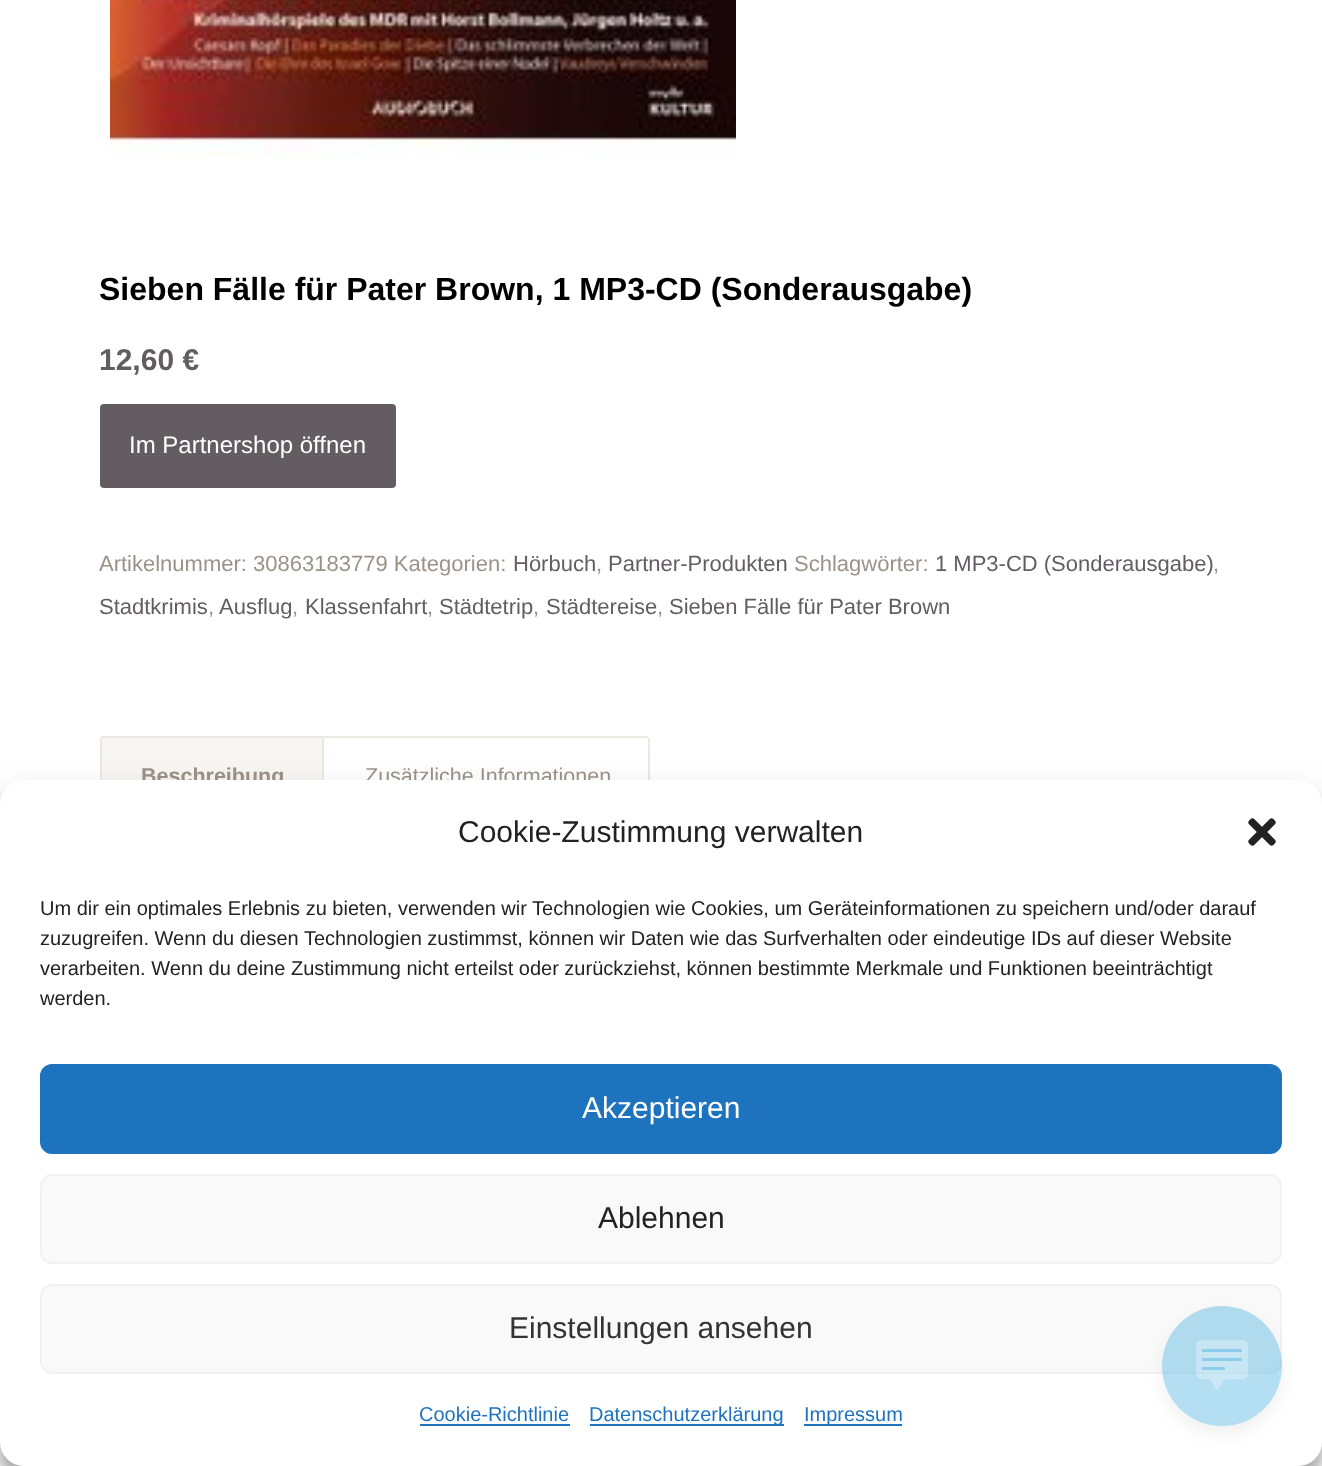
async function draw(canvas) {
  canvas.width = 1322;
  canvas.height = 1466;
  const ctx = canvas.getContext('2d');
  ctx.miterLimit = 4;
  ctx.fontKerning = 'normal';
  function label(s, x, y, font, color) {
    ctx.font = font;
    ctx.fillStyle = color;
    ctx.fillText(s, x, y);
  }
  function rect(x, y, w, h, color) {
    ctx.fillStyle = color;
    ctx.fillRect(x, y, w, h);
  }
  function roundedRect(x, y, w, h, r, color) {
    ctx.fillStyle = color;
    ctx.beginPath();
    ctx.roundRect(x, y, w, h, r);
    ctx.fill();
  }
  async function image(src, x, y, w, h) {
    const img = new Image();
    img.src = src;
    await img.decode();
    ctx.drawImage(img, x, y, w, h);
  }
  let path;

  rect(0, 0, 1322, 1466, '#fff');
  await image('assets/img1.png', 110, 0, 626, 157);
  label('Sieben Fälle für Pater Brown, 1 MP3-CD (Sonderausgabe)', 99, 300, 'bold 32px Liberation Sans', '#000');
  label('12,60 €', 99, 370, 'bold 30px Liberation Sans', '#635d61');
  roundedRect(100, 404, 296, 84, 4, '#635d61');
  label('Im Partnershop öffnen', 129, 453, '24px Liberation Sans', '#fff');
  label('Artikelnummer: 30863183779 Kategorien:', 99, 571, '22px Liberation Sans', '#9c9288');
  label('Hörbuch', 513, 571, '22px Liberation Sans', '#635d61');
  label(',', 596, 571, '22px Liberation Sans', '#9c9288');
  label('Partner-Produkten', 608, 571, '22px Liberation Sans', '#635d61');
  label('Schlagwörter:', 794, 571, '22px Liberation Sans', '#9c9288');
  label('1 MP3-CD (Sonderausgabe)', 935, 571, '22px Liberation Sans', '#635d61');
  label(',', 1213, 571, '22px Liberation Sans', '#9c9288');
  label('Stadtkrimis', 99, 614, '22px Liberation Sans', '#635d61');
  label(',', 208, 614, '22px Liberation Sans', '#9c9288');
  label('Ausflug', 219, 614, '22px Liberation Sans', '#635d61');
  label(',', 292, 614, '22px Liberation Sans', '#9c9288');
  label('Klassenfahrt', 305, 614, '22px Liberation Sans', '#635d61');
  label(',', 427, 614, '22px Liberation Sans', '#9c9288');
  label('Städtetrip', 439, 614, '22px Liberation Sans', '#635d61');
  label(',', 533, 614, '22px Liberation Sans', '#9c9288');
  label('Städtereise', 546, 614, '22px Liberation Sans', '#635d61');
  label(',', 657, 614, '22px Liberation Sans', '#9c9288');
  label('Sieben Fälle für Pater Brown', 669, 614, '22px Liberation Sans', '#635d61');
  rect(100, 736, 222, 44, '#f8f6f2');
  rect(322, 736, 326, 2, '#ebe8e2');
  rect(102, 736, 222, 2, '#ebe8e2');
  rect(322, 736, 2, 44, '#ebe8e2');
  rect(100, 738, 2, 42, '#ebe8e2');
  label('Beschreibung', 141, 783, 'bold 21.5px Liberation Sans', '#9c9288');
  rect(648, 738, 2, 42, '#ebe8e2');
  label('Zusätzliche Informationen', 365, 783, '21.5px Liberation Sans', '#9c9288');
  ctx.fillStyle = '#0000003b';
  ctx.filter = 'blur(6px)';
  ctx.beginPath();
  ctx.roundRect(0, 792, 1322, 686, 24);
  ctx.fill();
  ctx.filter = 'none';
  ctx.fillStyle = '#00000030';
  ctx.filter = 'blur(20px)';
  ctx.beginPath();
  ctx.roundRect(0, 800, 1322, 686, 24);
  ctx.fill();
  ctx.filter = 'none';
  roundedRect(0, 780, 1322, 686, 24, '#fff');
  label('Cookie-Zustimmung verwalten', 458, 842, '30px Liberation Sans', '#222');
  await image('assets/img2.png', 1248, 818, 28, 28);
  label('Um dir ein optimales Erlebnis zu bieten, verwenden wir Technologien wie Cookies, um Geräteinformationen zu speichern und/oder darauf', 40, 915, '20px Liberation Sans', '#222');
  label('zuzugreifen. Wenn du diesen Technologien zustimmst, können wir Daten wie das Surfverhalten oder eindeutige IDs auf dieser Website', 40, 945, '20px Liberation Sans', '#222');
  label('verarbeiten. Wenn du deine Zustimmung nicht erteilst oder zurückziehst, können bestimmte Merkmale und Funktionen beeinträchtigt', 40, 975, '20px Liberation Sans', '#222');
  label('werden.', 40, 1005, '20px Liberation Sans', '#222');
  ctx.fillStyle = '#1e73be';
  ctx.beginPath();
  ctx.roundRect(41, 1065, 1240, 88, 11);
  ctx.fill();
  ctx.strokeStyle = '#1e73be';
  ctx.lineWidth = 2;
  ctx.stroke();
  label('Akzeptieren', 582, 1118, '30px Liberation Sans', '#fff');
  ctx.fillStyle = '#f9f9f9';
  ctx.beginPath();
  ctx.roundRect(41, 1175, 1240, 88, 11);
  ctx.fill();
  ctx.strokeStyle = '#f2f2f2';
  ctx.stroke();
  label('Ablehnen', 598, 1228, '30px Liberation Sans', '#222');
  ctx.fillStyle = '#f9f9f9';
  ctx.beginPath();
  ctx.roundRect(41, 1285, 1240, 88, 11);
  ctx.fill();
  ctx.stroke();
  label('Einstellungen ansehen', 509, 1338, '30px Liberation Sans', '#333');
  label('Cookie-Richtlinie', 419, 1421, '20px Liberation Sans', '#1e73be');
  rect(420, 1424, 150, 2, '#1e73be');
  rect(590, 1424, 194, 2, '#1e73be');
  label('Datenschutzerklärung', 589, 1421, '20px Liberation Sans', '#1e73be');
  rect(804, 1424, 98, 2, '#1e73be');
  label('Impressum', 804, 1421, '20px Liberation Sans', '#1e73be');
  ctx.save();
  path = new Path2D('M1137 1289H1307V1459H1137ZM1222 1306C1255 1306 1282 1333 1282 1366C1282 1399 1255 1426 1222 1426C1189 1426 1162 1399 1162 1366C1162 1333 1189 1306 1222 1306Z');
  ctx.clip(path, 'evenodd');
  ctx.fillStyle = '#0000000f';
  ctx.filter = 'blur(8px)';
  ctx.beginPath();
  ctx.roundRect(1162, 1314, 120, 120, 60);
  ctx.fill();
  ctx.filter = 'none';
  ctx.restore();
  ctx.fillStyle = '#0596d44d';
  ctx.beginPath();
  ctx.arc(1222, 1366, 60, 0, 2 * Math.PI);
  ctx.fill();
  await image('assets/img3.png', 1196, 1340, 52, 51);
}

draw(document.querySelector('canvas'));
